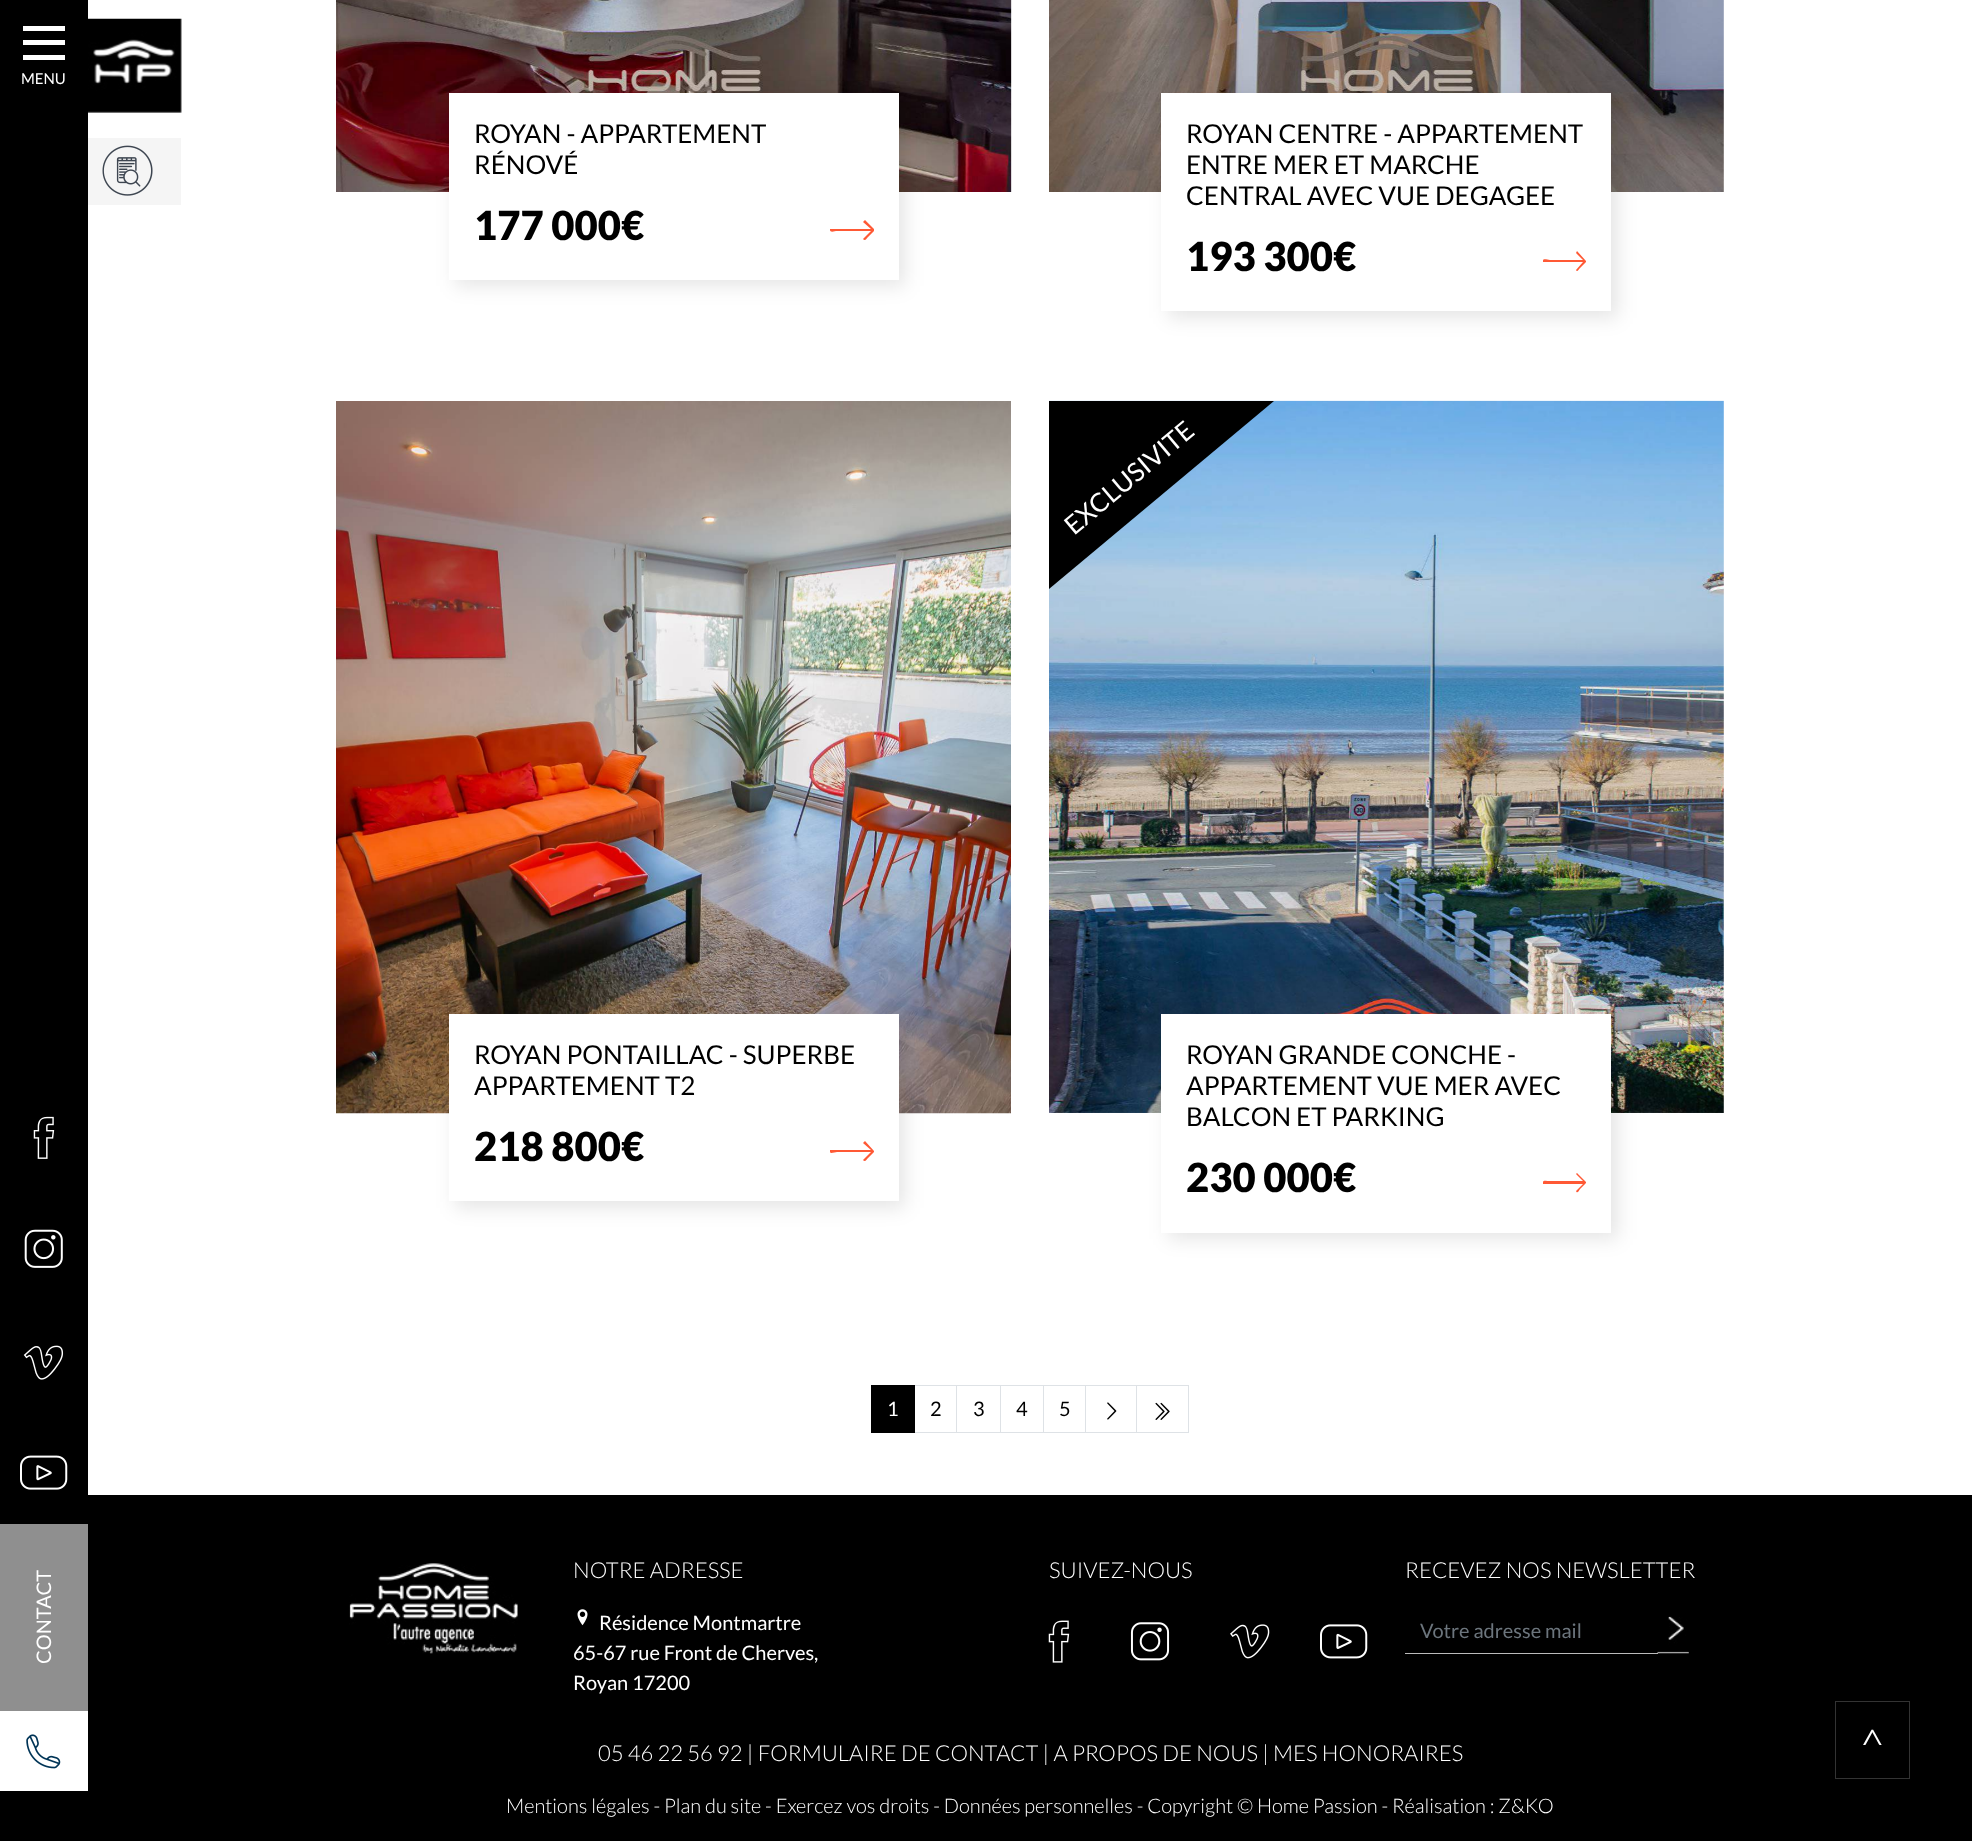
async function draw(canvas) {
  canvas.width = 1972;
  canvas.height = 1841;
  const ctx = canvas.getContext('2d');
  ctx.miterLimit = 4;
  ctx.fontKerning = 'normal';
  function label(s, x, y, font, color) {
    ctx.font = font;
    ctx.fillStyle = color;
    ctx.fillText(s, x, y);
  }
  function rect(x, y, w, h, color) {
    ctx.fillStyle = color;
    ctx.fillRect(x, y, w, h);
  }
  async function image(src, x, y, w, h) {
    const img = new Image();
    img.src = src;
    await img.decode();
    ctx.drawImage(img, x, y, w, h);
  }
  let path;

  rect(0, 0, 1972, 1841, '#fff');
  rect(0, 0, 88, 1841, '#000');
  rect(23, 26, 42, 5, '#fff');
  rect(23, 40, 42, 5, '#fff');
  rect(23, 55, 42, 5, '#fff');
  label('MENU', 21, 84, '15px Lato', '#fff');
  await image('assets/img1.png', 33, 1116, 22, 43);
  await image('assets/img2.png', 24, 1229, 39, 39);
  await image('assets/img3.png', 23, 1345, 41, 35);
  await image('assets/img4.png', 20, 1455, 48, 35);
  rect(0, 1524, 88, 187, '#8f8f8f');
  ctx.font = '20px Lato';
  ctx.fillStyle = '#fff';
  ctx.save();
  ctx.translate(51, 1664);
  ctx.rotate(-90 * Math.PI / 180);
  ctx.fillText('CONTACT', 0, 0);
  ctx.restore();
  rect(0, 1711, 88, 80, '#fff');
  await image('assets/img5.png', 26, 1734, 35, 35);
  await image('assets/img6.png', 88, 18, 94, 95);
  rect(88, 138, 93, 67, '#f5f5f5');
  await image('assets/img7.png', 102, 145, 51, 51);
  await image('assets/img8.png', 336, 0, 676, 192);
  ctx.fillStyle = '#0000001a';
  ctx.filter = 'blur(9.5px)';
  ctx.beginPath();
  ctx.rect(455, 99, 450, 187);
  ctx.fill();
  ctx.filter = 'none';
  rect(449, 93, 450, 187, '#fff');
  label('ROYAN - APPARTEMENT', 474, 143, '26px Lato', '#000');
  label('RÉNOVÉ', 474, 174, '26px Lato', '#000');
  label('177 000€', 474, 240, '900 40px Lato', '#000');
  ctx.fillStyle = '#ff5935';
  path = new Path2D('M874 231V229L865 220L863 222L871 229H830V230C830 233 835 231 837 231H871L863 239C865 242 867 238 868 237Z');
  ctx.fill(path);
  await image('assets/img9.png', 1049, 0, 675, 192);
  ctx.fillStyle = '#0000001a';
  ctx.filter = 'blur(9.5px)';
  ctx.beginPath();
  ctx.rect(1168, 99, 450, 219);
  ctx.fill();
  ctx.filter = 'none';
  rect(1161, 93, 450, 218, '#fff');
  label('ROYAN CENTRE - APPARTEMENT', 1186, 143, '26px Lato', '#000');
  label('ENTRE MER ET MARCHE', 1186, 174, '26px Lato', '#000');
  label('CENTRAL AVEC VUE DEGAGEE', 1186, 205, '26px Lato', '#000');
  label('193 300€', 1186, 271, '900 40px Lato', '#000');
  ctx.fillStyle = '#ff5935';
  path = new Path2D('M1586 262V261L1577 251L1576 253L1583 260H1550C1547 260 1543 258 1543 261V262H1583L1576 270C1577 273 1579 269 1580 268Z');
  ctx.fill(path);
  await image('assets/img10.png', 336, 401, 675, 713);
  ctx.fillStyle = '#0000001a';
  ctx.filter = 'blur(9.5px)';
  ctx.beginPath();
  ctx.rect(455, 1020, 450, 188);
  ctx.fill();
  ctx.filter = 'none';
  rect(449, 1014, 450, 187, '#fff');
  label('ROYAN PONTAILLAC - SUPERBE', 474, 1064, '26px Lato', '#000');
  label('APPARTEMENT T2', 474, 1095, '26px Lato', '#000');
  label('218 800€', 474, 1161, '900 40px Lato', '#000');
  ctx.fillStyle = '#ff5935';
  path = new Path2D('M874 1152V1151L865 1141L863 1143L871 1150H830V1152C830 1154 835 1152 837 1152H871L863 1160C865 1163 867 1159 868 1158Z');
  ctx.fill(path);
  await image('assets/img11.png', 1049, 400, 675, 713);
  ctx.fillStyle = '#000';
  path = new Path2D('M1049 401H1274L1049 589Z');
  ctx.fill(path);
  ctx.font = '26px Lato';
  ctx.fillStyle = '#fff';
  ctx.save();
  ctx.translate(1074, 536);
  ctx.rotate(-40 * Math.PI / 180);
  ctx.fillText('EXCLUSIVITE', 0, 0);
  ctx.restore();
  ctx.fillStyle = '#0000001a';
  ctx.filter = 'blur(9.5px)';
  ctx.beginPath();
  ctx.rect(1168, 1020, 450, 219);
  ctx.fill();
  ctx.filter = 'none';
  rect(1161, 1014, 450, 219, '#fff');
  label('ROYAN GRANDE CONCHE -', 1186, 1064, '26px Lato', '#000');
  label('APPARTEMENT VUE MER AVEC', 1186, 1095, '26px Lato', '#000');
  label('BALCON ET PARKING', 1186, 1126, '26px Lato', '#000');
  label('230 000€', 1186, 1192, '900 40px Lato', '#000');
  ctx.fillStyle = '#ff5935';
  path = new Path2D('M1586 1183V1182L1577 1173L1576 1174L1583 1181H1550C1547 1181 1543 1180 1543 1182V1184H1583L1576 1191C1577 1194 1579 1191 1580 1189Z');
  ctx.fill(path);
  ctx.strokeStyle = '#dee2e6';
  ctx.strokeRect(914.5, 1385.5, 43, 47);
  rect(871, 1385, 44, 48, '#000');
  label('1', 887, 1416, '20px Lato', '#fff');
  label('2', 930, 1416, '20px Lato', '#000');
  rect(957, 1386, 1, 46, '#fff');
  ctx.strokeRect(956.5, 1385.5, 44, 47);
  label('3', 973, 1416, '20px Lato', '#000');
  ctx.strokeRect(1000.5, 1385.5, 43, 47);
  label('4', 1016, 1416, '20px Lato', '#000');
  ctx.strokeRect(1043.5, 1385.5, 42, 47);
  label('5', 1059, 1416, '20px Lato', '#000');
  ctx.strokeRect(1085.5, 1385.5, 52, 47);
  await image('assets/img12.png', 1107, 1402, 10, 18);
  rect(1137, 1386, 1, 46, '#fff');
  ctx.strokeRect(1136.5, 1385.5, 52, 47);
  await image('assets/img13.png', 1155, 1402, 15, 18);
  rect(88, 1495, 1884, 346, '#000');
  await image('assets/img14.png', 349, 1563, 169, 91);
  label('NOTRE ADRESSE', 573, 1578, '300 22px Lato', '#fff');
  await image('assets/img15.png', 577, 1609, 11, 17);
  label('Résidence Montmartre', 599, 1630, '20px Lato', '#fff');
  label('65-67 rue Front de Cherves,', 573, 1660, '20px Lato', '#fff');
  label('Royan 17200', 573, 1690, '20px Lato', '#fff');
  label('SUIVEZ-NOUS', 1049, 1578, '300 22px Lato', '#fff');
  await image('assets/img16.png', 1048, 1620, 22, 43);
  await image('assets/img17.png', 1130, 1622, 40, 39);
  await image('assets/img18.png', 1230, 1624, 40, 35);
  await image('assets/img19.png', 1320, 1624, 48, 35);
  label('RECEVEZ NOS NEWSLETTER', 1405, 1578, '300 22px Lato', '#fff');
  rect(1405, 1653, 253, 1, '#bbb');
  label('Votre adresse mail', 1420, 1638, '20px Lato', '#6c757d');
  await image('assets/img20.png', 1657, 1616, 32, 38);
  label('05 46 22 56 92 | FORMULAIRE DE CONTACT | A PROPOS DE NOUS | MES HONORAIRES', 598, 1761, '300 22px Lato', '#fff');
  label('Mentions légales - Plan du site - Exercez vos droits - Données personnelles - Copyright © Home Passion - Réalisation : Z&KO', 506, 1813, '300 20px Lato', '#fff');
  ctx.strokeStyle = '#333';
  ctx.strokeRect(1835.5, 1701.5, 74, 77);
  label('^', 1858, 1765, '300 50px Lato', '#fff');
}

draw(document.querySelector('canvas'));
